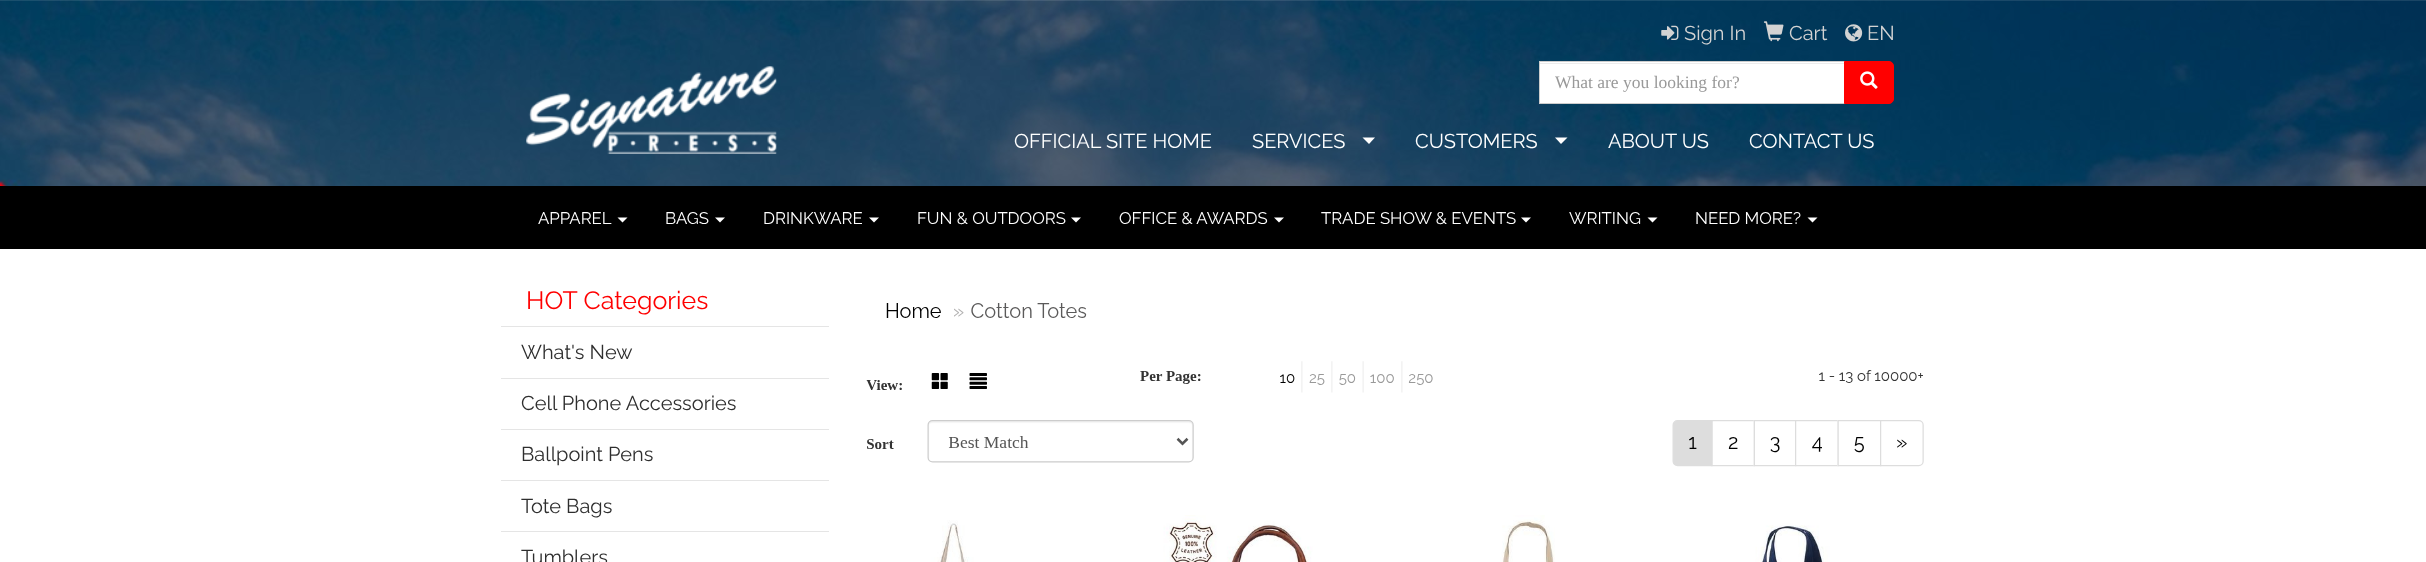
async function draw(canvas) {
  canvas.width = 2426;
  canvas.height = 562;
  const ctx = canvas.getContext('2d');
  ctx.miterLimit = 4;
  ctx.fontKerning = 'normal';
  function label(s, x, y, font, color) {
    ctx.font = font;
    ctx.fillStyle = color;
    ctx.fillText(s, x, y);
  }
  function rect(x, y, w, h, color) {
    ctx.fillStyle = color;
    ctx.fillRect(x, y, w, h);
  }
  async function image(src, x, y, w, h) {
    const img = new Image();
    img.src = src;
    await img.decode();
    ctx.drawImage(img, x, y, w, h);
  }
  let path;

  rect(0, 0, 2426, 562, '#fff');
  await image('assets/img1.png', 0, 0, 2426, 186);
  await image('assets/img2.png', 1661, 25, 18, 15);
  label('Sign In', 1684, 40, '100 20px Raleway', '#d3d3d3');
  await image('assets/img3.png', 1763, 21, 21, 21);
  label('Cart', 1789, 40, '100 20px Raleway', '#d3d3d3');
  await image('assets/img4.png', 1845, 24, 18, 18);
  label('EN', 1867, 40, '100 20px Raleway', '#d3d3d3');
  await image('assets/img5.png', 526, 66, 251, 88);
  rect(1540, 62, 304, 41, '#fff');
  rect(1540, 63, 304, 1, '#ececec');
  ctx.strokeStyle = '#ccc';
  ctx.strokeRect(1539.5, 61.5, 305, 42);
  label('What are you looking for?', 1555, 88, '17.5px Liberation Serif', '#999');
  ctx.fillStyle = '#f00';
  ctx.beginPath();
  ctx.roundRect(1844.5, 61.5, 49, 42, [0, 4.5, 4.5, 0]);
  ctx.fill();
  ctx.strokeStyle = '#f00';
  ctx.stroke();
  await image('assets/img6.png', 1860, 71, 18, 18);
  label('OFFICIAL SITE HOME', 1014, 148, '100 20px Raleway', '#fff');
  label('SERVICES', 1252, 148, '100 20px Raleway', '#fff');
  path = new Path2D('M1362.5 137.5H1375L1369 144Z');
  ctx.fill(path);
  label('CUSTOMERS', 1415, 148, '100 20px Raleway', '#fff');
  path = new Path2D('M1555 137.5H1567.5L1561 144Z');
  ctx.fill(path);
  label('ABOUT US', 1608, 148, '100 20px Raleway', '#fff');
  label('CONTACT US', 1749, 148, '100 20px Raleway', '#fff');
  rect(0, 186, 2426, 63, '#000');
  label('APPAREL', 538, 224, '100 16.75px Raleway', '#fff');
  path = new Path2D('M617.5 217.5H627.5L622.5 222.5Z');
  ctx.fill(path);
  label('BAGS', 665, 224, '100 16.75px Raleway', '#fff');
  path = new Path2D('M715 217.5H725L720 222.5Z');
  ctx.fill(path);
  label('DRINKWARE', 763, 224, '100 16.75px Raleway', '#fff');
  path = new Path2D('M869 217.5H879L874 222.5Z');
  ctx.fill(path);
  label('FUN & OUTDOORS', 917, 224, '100 16.75px Raleway', '#fff');
  path = new Path2D('M1071 217.5H1081L1076 222.5Z');
  ctx.fill(path);
  label('OFFICE & AWARDS', 1119, 224, '100 16.75px Raleway', '#fff');
  path = new Path2D('M1274 217.5H1284L1279 222.5Z');
  ctx.fill(path);
  label('TRADE SHOW & EVENTS', 1321, 224, '100 16.75px Raleway', '#fff');
  path = new Path2D('M1521 217.5H1531L1526 222.5Z');
  ctx.fill(path);
  label('WRITING', 1569, 224, '100 16.75px Raleway', '#fff');
  path = new Path2D('M1647.5 217.5H1657.5L1652.5 222.5Z');
  ctx.fill(path);
  label('NEED MORE?', 1695, 224, '100 16.75px Raleway', '#fff');
  path = new Path2D('M1807.5 217.5H1817.5L1812.5 222.5Z');
  ctx.fill(path);
  label('HOT Categories', 526, 309, '100 25px Raleway', '#f00');
  rect(501, 326, 328, 1, '#e5e5e5');
  label('What\'s New', 521, 359, '100 20px Raleway', '#2e2e2e');
  rect(501, 378, 328, 1, '#e5e5e5');
  label('Cell Phone Accessories', 521, 410, '100 20px Raleway', '#2e2e2e');
  rect(501, 429, 328, 1, '#e5e5e5');
  label('Ballpoint Pens', 521, 461, '100 20px Raleway', '#2e2e2e');
  rect(501, 480, 328, 1, '#e5e5e5');
  label('Tote Bags', 521, 513, '100 20px Raleway', '#2e2e2e');
  rect(501, 531, 328, 1, '#e5e5e5');
  label('Tumblers', 521, 564, '100 20px Raleway', '#2e2e2e');
  await image('assets/img7.png', 866, 303, 1058, 259);
}

draw(document.querySelector('canvas'));
